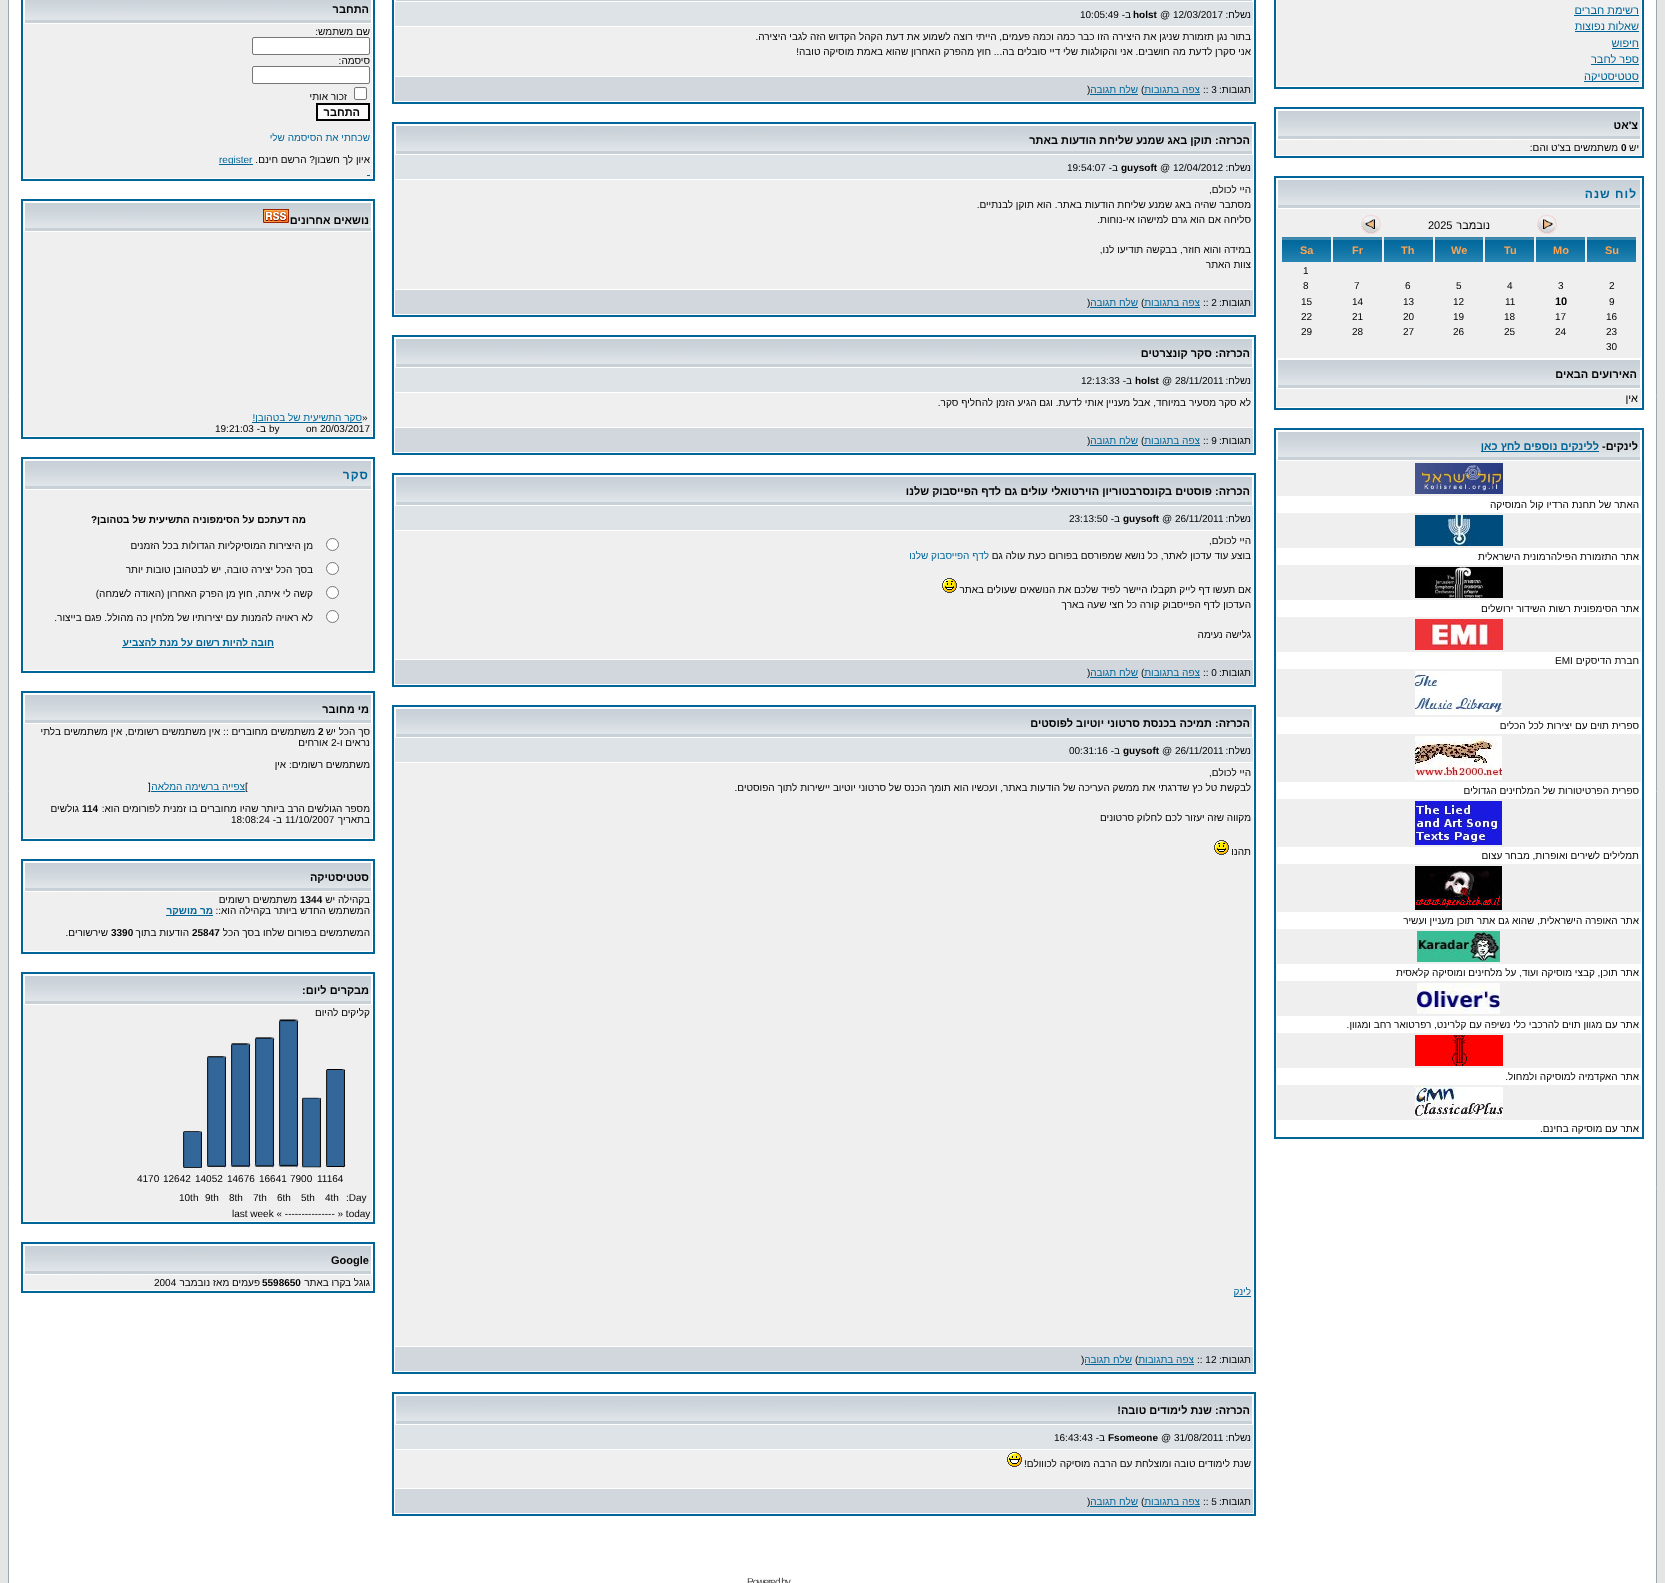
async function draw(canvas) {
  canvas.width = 1665;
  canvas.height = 1583;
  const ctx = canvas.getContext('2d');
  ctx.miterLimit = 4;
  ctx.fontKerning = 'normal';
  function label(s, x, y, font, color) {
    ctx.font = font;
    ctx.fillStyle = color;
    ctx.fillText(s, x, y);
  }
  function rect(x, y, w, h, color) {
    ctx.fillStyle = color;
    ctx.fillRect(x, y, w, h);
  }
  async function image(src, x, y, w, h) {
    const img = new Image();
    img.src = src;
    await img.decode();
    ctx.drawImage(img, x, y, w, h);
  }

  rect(0, 0, 1665, 1583, '#e5e5e5');
  ctx.fillStyle = '#fff';
  ctx.beginPath();
  ctx.rect(8.5, -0.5, 1648, 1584);
  ctx.fill();
  ctx.strokeStyle = '#98aab1';
  ctx.stroke();
  ctx.strokeStyle = '#069';
  ctx.lineWidth = 2;
  ctx.strokeRect(1275, -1, 368, 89);
  rect(1277, 0, 364, 86, '#efefef');
  ctx.direction = 'rtl';
  label('רשימת חברים', 1639, 14, '11px Liberation Sans', '#069');
  rect(1574, 15, 65, 1, '#069');
  label('שאלות נפוצות', 1639, 30, '11px Liberation Sans', '#069');
  rect(1575, 31, 64, 1, '#069');
  label('חיפוש', 1639, 47, '11px Liberation Sans', '#069');
  rect(1612, 48, 27, 1, '#069');
  label('ספר לחבר', 1639, 63, '11px Liberation Sans', '#069');
  rect(1591, 64, 48, 1, '#069');
  rect(1584, 81, 55, 1, '#069');
  label('סטטיסטיקה', 1639, 80, '11px Liberation Sans', '#069');
  ctx.strokeRect(1275, 108, 368, 49);
  await image('assets/img1.png', 1278, 111, 362, 28);
  label('צ\'אט', 1638, 129, 'bold 11px Liberation Sans', '#000');
  rect(1277, 140, 364, 15, '#efefef');
  label('יש', 1639, 151, '10px Liberation Sans', '#000');
  ctx.direction = 'ltr';
  label('0', 1621, 151, 'bold 10px Liberation Sans', '#000');
  ctx.direction = 'rtl';
  label('משתמשים בצ\'ט והם:', 1618, 151, '10px Liberation Sans', '#000');
  ctx.strokeRect(1275, 177, 368, 232);
  await image('assets/img1.png', 1278, 180, 362, 28);
  ctx.letterSpacing = '1px';
  label('לוח שנה', 1637, 198, 'bold 12px Liberation Sans', '#069');
  rect(1277, 209, 364, 149, '#efefef');
  await image('assets/img2.png', 1537, 215, 20, 19);
  ctx.letterSpacing = '0px';
  label('נובמבר', 1490, 229, '11px Liberation Sans', '#000');
  ctx.direction = 'ltr';
  label('2025', 1428, 229, '11px Liberation Sans', '#000');
  await image('assets/img3.png', 1361, 215, 20, 19);
  await image('assets/img4.png', 1587, 237, 49, 25);
  label('Su', 1605, 254, 'bold 11px Liberation Sans', '#ffa34f');
  await image('assets/img4.png', 1536, 237, 49, 25);
  label('Mo', 1553, 254, 'bold 11px Liberation Sans', '#ffa34f');
  await image('assets/img4.png', 1485, 237, 49, 25);
  label('Tu', 1504, 254, 'bold 11px Liberation Sans', '#ffa34f');
  await image('assets/img5.png', 1435, 237, 48, 25);
  label('We', 1451, 254, 'bold 11px Liberation Sans', '#ffa34f');
  await image('assets/img4.png', 1384, 237, 49, 25);
  label('Th', 1401, 254, 'bold 11px Liberation Sans', '#ffa34f');
  await image('assets/img4.png', 1333, 237, 49, 25);
  label('Fr', 1352, 254, 'bold 11px Liberation Sans', '#ffa34f');
  await image('assets/img4.png', 1282, 237, 49, 25);
  label('Sa', 1300, 254, 'bold 11px Liberation Sans', '#ffa34f');
  label('1', 1303, 274, '10px Liberation Sans', '#000');
  label('2', 1609, 289, '10px Liberation Sans', '#000');
  label('3', 1558, 289, '10px Liberation Sans', '#000');
  label('4', 1507, 289, '10px Liberation Sans', '#000');
  label('5', 1456, 289, '10px Liberation Sans', '#000');
  label('6', 1405, 289, '10px Liberation Sans', '#000');
  label('7', 1354, 289, '10px Liberation Sans', '#000');
  label('8', 1303, 289, '10px Liberation Sans', '#000');
  label('9', 1609, 305, '10px Liberation Sans', '#000');
  label('10', 1555, 305, 'bold 11px Liberation Sans', '#000');
  label('11', 1505, 305, '10px Liberation Sans', '#000');
  label('12', 1453, 305, '10px Liberation Sans', '#000');
  label('13', 1403, 305, '10px Liberation Sans', '#000');
  label('14', 1352, 305, '10px Liberation Sans', '#000');
  label('15', 1301, 305, '10px Liberation Sans', '#000');
  label('16', 1606, 320, '10px Liberation Sans', '#000');
  label('17', 1555, 320, '10px Liberation Sans', '#000');
  label('18', 1504, 320, '10px Liberation Sans', '#000');
  label('19', 1453, 320, '10px Liberation Sans', '#000');
  label('20', 1403, 320, '10px Liberation Sans', '#000');
  label('21', 1352, 320, '10px Liberation Sans', '#000');
  label('22', 1301, 320, '10px Liberation Sans', '#000');
  label('23', 1606, 335, '10px Liberation Sans', '#000');
  label('24', 1555, 335, '10px Liberation Sans', '#000');
  label('25', 1504, 335, '10px Liberation Sans', '#000');
  label('26', 1453, 335, '10px Liberation Sans', '#000');
  label('27', 1403, 335, '10px Liberation Sans', '#000');
  label('28', 1352, 335, '10px Liberation Sans', '#000');
  label('29', 1301, 335, '10px Liberation Sans', '#000');
  label('30', 1606, 350, '10px Liberation Sans', '#000');
  await image('assets/img1.png', 1278, 360, 362, 28);
  ctx.direction = 'rtl';
  label('האירועים הבאים', 1637, 378, 'bold 11px Liberation Sans', '#000');
  rect(1277, 389, 364, 18, '#efefef');
  label('אין', 1638, 402, '11px Liberation Sans', '#000');
  ctx.strokeRect(1275, 429, 368, 709);
  await image('assets/img1.png', 1278, 432, 362, 28);
  label('לינקים-', 1638, 450, 'bold 11px Liberation Sans', '#000');
  rect(1481, 451, 118, 1, '#069');
  label('ללינקים נוספים לחץ כאן', 1599, 450, 'bold 11px Liberation Sans', '#069');
  rect(1277, 461, 364, 35, '#efefef');
  await image('assets/img6.png', 1415, 463, 88, 31);
  label('האתר של תחנת הרדיו קול המוסיקה', 1639, 508, '10px Liberation Sans', '#000');
  rect(1277, 513, 364, 35, '#efefef');
  await image('assets/img7.png', 1415, 515, 88, 31);
  label('אתר התזמורת הפילהרמונית הישראלית', 1639, 560, '10px Liberation Sans', '#000');
  rect(1277, 565, 364, 35, '#efefef');
  await image('assets/img8.png', 1415, 567, 88, 31);
  label('אתר הסימפונית רשות השידור ירושלים', 1639, 612, '10px Liberation Sans', '#000');
  rect(1277, 617, 364, 35, '#efefef');
  await image('assets/img9.png', 1415, 619, 88, 31);
  label('חברת הדיסקים', 1639, 664, '10px Liberation Sans', '#000');
  ctx.direction = 'ltr';
  label('EMI', 1555, 664, '10px Liberation Sans', '#000');
  rect(1277, 669, 364, 48, '#efefef');
  await image('assets/img10.png', 1415, 671, 87, 44);
  ctx.direction = 'rtl';
  label('ספרית תוים עם יצירות לכל הכלים', 1639, 729, '10px Liberation Sans', '#000');
  rect(1277, 734, 364, 48, '#efefef');
  await image('assets/img11.png', 1415, 736, 87, 44);
  label('ספרית הפרטיטורות של המלחינים הגדולים', 1639, 794, '10px Liberation Sans', '#000');
  rect(1277, 799, 364, 48, '#efefef');
  await image('assets/img12.png', 1415, 801, 87, 44);
  label('תמלילים לשירים ואופרות, מבחר עצום', 1639, 859, '10px Liberation Sans', '#000');
  rect(1277, 864, 364, 48, '#efefef');
  await image('assets/img13.png', 1415, 866, 87, 44);
  label('אתר האופרה הישראלית, שהוא גם אתר תוכן מעניין ועשיר', 1639, 924, '10px Liberation Sans', '#000');
  rect(1277, 929, 364, 35, '#efefef');
  await image('assets/img14.png', 1417, 931, 83, 31);
  label('אתר תוכן, קבצי מוסיקה ועוד, על מלחינים ומוסיקה קלאסית', 1639, 976, '10px Liberation Sans', '#000');
  rect(1277, 981, 364, 35, '#efefef');
  await image('assets/img15.png', 1417, 983, 83, 31);
  label('אתר עם מגוון תוים להרכבי כלי נשיפה עם קלרינט, רפרטואר רחב ומגוון.', 1639, 1028, '10px Liberation Sans', '#000');
  rect(1277, 1033, 364, 35, '#efefef');
  await image('assets/img16.png', 1415, 1035, 88, 31);
  label('אתר האקדמיה למוסיקה ולמחול.', 1639, 1080, '10px Liberation Sans', '#000');
  rect(1277, 1085, 364, 35, '#efefef');
  await image('assets/img17.png', 1415, 1087, 88, 31);
  label('אתר עם מוסיקה בחינם.', 1639, 1132, '10px Liberation Sans', '#000');
  ctx.strokeRect(393, -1, 862, 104);
  rect(395, 0, 858, 1, '#c8d1d7');
  rect(1252, 0, 1, 1, '#fff');
  rect(395, 0, 1, 1, '#fff');
  rect(395, 2, 858, 24, '#dee3e7');
  label('נשלח:', 1251, 18, '10px Liberation Sans', '#000');
  ctx.direction = 'ltr';
  label('@ 12/03/2017', 1160, 18, '10px Liberation Sans', '#000');
  label('holst', 1133, 18, 'bold 10px Liberation Sans', '#000');
  ctx.direction = 'rtl';
  label('ב-', 1131, 18, '10px Liberation Sans', '#000');
  ctx.direction = 'ltr';
  label('10:05:49', 1080, 18, '10px Liberation Sans', '#000');
  rect(395, 27, 858, 49, '#efefef');
  ctx.direction = 'rtl';
  label('בתור נגן תזמורת שניגן את היצירה הזו כבר כמה וכמה פעמים, הייתי רוצה לשמוע את דעת הקהל הקדוש הזה לגבי היצירה.', 1251, 40, '10px Liberation Sans', '#000');
  label('אני סקרן לדעת מה חושבים. אני והקולגות שלי דיי סובלים בה... חוץ מהפרק האחרון שהוא באמת מוסיקה טובה!', 1251, 55, '10px Liberation Sans', '#000');
  rect(395, 77, 858, 24, '#d1d7dc');
  label('תגובות:', 1251, 93, '10px Liberation Sans', '#000');
  ctx.direction = 'ltr';
  label(':: 3', 1203, 93, '10px Liberation Sans', '#000');
  ctx.direction = 'rtl';
  label('צפה בתגובות', 1200, 93, '10px Liberation Sans', '#069');
  ctx.direction = 'ltr';
  label('(', 1141, 93, '10px Liberation Sans', '#000');
  rect(1144, 94, 56, 1, '#069');
  ctx.direction = 'rtl';
  label('שלח תגובה', 1138, 93, '10px Liberation Sans', '#069');
  ctx.direction = 'ltr';
  label(')', 1087, 93, '10px Liberation Sans', '#000');
  rect(1090, 94, 48, 1, '#069');
  ctx.strokeRect(393, 123, 862, 193);
  await image('assets/img18.png', 396, 126, 856, 28);
  ctx.direction = 'rtl';
  label('הכרזה: תוקן באג שמנע שליחת הודעות באתר', 1250, 144, 'bold 11px Liberation Sans', '#000');
  rect(395, 155, 858, 24, '#dee3e7');
  label('נשלח:', 1251, 171, '10px Liberation Sans', '#000');
  ctx.direction = 'ltr';
  label('@ 12/04/2012', 1160, 171, '10px Liberation Sans', '#000');
  label('guysoft', 1121, 171, 'bold 10px Liberation Sans', '#000');
  ctx.direction = 'rtl';
  label('ב-', 1118, 171, '10px Liberation Sans', '#000');
  ctx.direction = 'ltr';
  label('19:54:07', 1067, 171, '10px Liberation Sans', '#000');
  rect(395, 180, 858, 109, '#efefef');
  ctx.direction = 'rtl';
  label('היי לכולם,', 1251, 193, '10px Liberation Sans', '#000');
  label('מסתבר שהיה באג שמנע שליחת הודעות באתר. הוא תוקן לבנתיים.', 1251, 208, '10px Liberation Sans', '#000');
  label('סליחה אם הוא גרם למישהו אי-נוחות.', 1251, 223, '10px Liberation Sans', '#000');
  label('במידה והוא חוזר, בבקשה תודיעו לנו,', 1251, 253, '10px Liberation Sans', '#000');
  label('צוות האתר', 1251, 268, '10px Liberation Sans', '#000');
  rect(395, 290, 858, 24, '#d1d7dc');
  label('תגובות:', 1251, 306, '10px Liberation Sans', '#000');
  ctx.direction = 'ltr';
  label(':: 2', 1203, 306, '10px Liberation Sans', '#000');
  ctx.direction = 'rtl';
  label('צפה בתגובות', 1200, 306, '10px Liberation Sans', '#069');
  ctx.direction = 'ltr';
  label('(', 1141, 306, '10px Liberation Sans', '#000');
  rect(1144, 307, 56, 1, '#069');
  ctx.direction = 'rtl';
  label('שלח תגובה', 1138, 306, '10px Liberation Sans', '#069');
  ctx.direction = 'ltr';
  label(')', 1087, 306, '10px Liberation Sans', '#000');
  rect(1090, 307, 48, 1, '#069');
  ctx.strokeRect(393, 336, 862, 118);
  await image('assets/img18.png', 396, 339, 856, 28);
  ctx.direction = 'rtl';
  label('הכרזה: סקר קונצרטים', 1250, 357, 'bold 11px Liberation Sans', '#000');
  rect(395, 368, 858, 24, '#dee3e7');
  label('נשלח:', 1251, 384, '10px Liberation Sans', '#000');
  ctx.direction = 'ltr';
  label('@ 28/11/2011', 1162, 384, '10px Liberation Sans', '#000');
  label('holst', 1135, 384, 'bold 10px Liberation Sans', '#000');
  ctx.direction = 'rtl';
  label('ב-', 1132, 384, '10px Liberation Sans', '#000');
  ctx.direction = 'ltr';
  label('12:13:33', 1081, 384, '10px Liberation Sans', '#000');
  rect(395, 393, 858, 34, '#efefef');
  ctx.direction = 'rtl';
  label('לא סקר מסעיר במיוחד, אבל מעניין אותי לדעת. וגם הגיע הזמן להחליף סקר.', 1251, 406, '10px Liberation Sans', '#000');
  rect(395, 428, 858, 24, '#d1d7dc');
  label('תגובות:', 1251, 444, '10px Liberation Sans', '#000');
  ctx.direction = 'ltr';
  label(':: 9', 1203, 444, '10px Liberation Sans', '#000');
  ctx.direction = 'rtl';
  label('צפה בתגובות', 1200, 444, '10px Liberation Sans', '#069');
  ctx.direction = 'ltr';
  label('(', 1141, 444, '10px Liberation Sans', '#000');
  rect(1144, 445, 56, 1, '#069');
  ctx.direction = 'rtl';
  label('שלח תגובה', 1138, 444, '10px Liberation Sans', '#069');
  ctx.direction = 'ltr';
  label(')', 1087, 444, '10px Liberation Sans', '#000');
  rect(1090, 445, 48, 1, '#069');
  ctx.strokeRect(393, 474, 862, 212);
  await image('assets/img18.png', 396, 477, 856, 28);
  ctx.direction = 'rtl';
  label('הכרזה: פוסטים בקונסרבטוריון הוירטואלי עולים גם לדף הפייסבוק שלנו', 1250, 495, 'bold 11px Liberation Sans', '#000');
  rect(395, 506, 858, 24, '#dee3e7');
  label('נשלח:', 1251, 522, '10px Liberation Sans', '#000');
  ctx.direction = 'ltr';
  label('@ 26/11/2011', 1162, 522, '10px Liberation Sans', '#000');
  label('guysoft', 1123, 522, 'bold 10px Liberation Sans', '#000');
  ctx.direction = 'rtl';
  label('ב-', 1120, 522, '10px Liberation Sans', '#000');
  ctx.direction = 'ltr';
  label('23:13:50', 1069, 522, '10px Liberation Sans', '#000');
  rect(395, 531, 858, 128, '#efefef');
  ctx.direction = 'rtl';
  label('היי לכולם,', 1251, 544, '10px Liberation Sans', '#000');
  label('בוצע עוד עדכון לאתר, כל נושא שמפורסם בפורום כעת עולה גם', 1251, 559, '10px Liberation Sans', '#000');
  label('לדף הפייסבוק שלנו', 989, 559, '10px Liberation Sans', '#069');
  label('אם תעשו דף לייק תקבלו היישר לפיד שלכם את הנושאים שעולים באתר', 1251, 593, '10px Liberation Sans', '#000');
  await image('assets/img19.png', 942, 578, 15, 15);
  label('העדכון לדף הפייסבוק קורה כל חצי שעה בארך', 1251, 608, '10px Liberation Sans', '#000');
  label('גלישה נעימה', 1251, 638, '10px Liberation Sans', '#000');
  rect(395, 660, 858, 24, '#d1d7dc');
  label('תגובות:', 1251, 676, '10px Liberation Sans', '#000');
  ctx.direction = 'ltr';
  label(':: 0', 1203, 676, '10px Liberation Sans', '#000');
  ctx.direction = 'rtl';
  label('צפה בתגובות', 1200, 676, '10px Liberation Sans', '#069');
  ctx.direction = 'ltr';
  label('(', 1141, 676, '10px Liberation Sans', '#000');
  rect(1144, 677, 56, 1, '#069');
  ctx.direction = 'rtl';
  label('שלח תגובה', 1138, 676, '10px Liberation Sans', '#069');
  ctx.direction = 'ltr';
  label(')', 1087, 676, '10px Liberation Sans', '#000');
  rect(1090, 677, 48, 1, '#069');
  ctx.strokeRect(393, 706, 862, 667);
  await image('assets/img18.png', 396, 709, 856, 28);
  ctx.direction = 'rtl';
  label('הכרזה: תמיכה בכנסת סרטוני יוטיוב לפוסטים', 1250, 727, 'bold 11px Liberation Sans', '#000');
  rect(395, 738, 858, 24, '#dee3e7');
  label('נשלח:', 1251, 754, '10px Liberation Sans', '#000');
  ctx.direction = 'ltr';
  label('@ 26/11/2011', 1162, 754, '10px Liberation Sans', '#000');
  label('guysoft', 1123, 754, 'bold 10px Liberation Sans', '#000');
  ctx.direction = 'rtl';
  label('ב-', 1120, 754, '10px Liberation Sans', '#000');
  ctx.direction = 'ltr';
  label('00:31:16', 1069, 754, '10px Liberation Sans', '#000');
  rect(395, 763, 858, 583, '#efefef');
  ctx.direction = 'rtl';
  label('היי לכולם,', 1251, 776, '10px Liberation Sans', '#000');
  label('לבקשת טל כץ שדרגתי את ממשק העריכה של הודעות באתר, ועכשיו הוא תומך הכנס של סרטוני יוטיוב יישירות לתוך הפוסטים.', 1251, 791, '10px Liberation Sans', '#000');
  label('מקווה שזה יעזור לכם לחלוק סרטונים', 1251, 821, '10px Liberation Sans', '#000');
  label('תהנו', 1251, 855, '10px Liberation Sans', '#000');
  await image('assets/img19.png', 1214, 840, 15, 15);
  rect(1234, 1296, 17, 1, '#069');
  label('לינק', 1251, 1295, '10px Liberation Sans', '#069');
  rect(395, 1347, 858, 24, '#d1d7dc');
  label('תגובות:', 1251, 1363, '10px Liberation Sans', '#000');
  ctx.direction = 'ltr';
  label(':: 12', 1197, 1363, '10px Liberation Sans', '#000');
  ctx.direction = 'rtl';
  label('צפה בתגובות', 1194, 1363, '10px Liberation Sans', '#069');
  rect(1138, 1364, 56, 1, '#069');
  ctx.direction = 'ltr';
  label('(', 1135, 1363, '10px Liberation Sans', '#000');
  ctx.direction = 'rtl';
  label('שלח תגובה', 1132, 1363, '10px Liberation Sans', '#069');
  ctx.direction = 'ltr';
  label(')', 1081, 1363, '10px Liberation Sans', '#000');
  rect(1085, 1364, 47, 1, '#069');
  ctx.strokeRect(393, 1393, 862, 122);
  await image('assets/img18.png', 396, 1396, 856, 28);
  ctx.direction = 'rtl';
  label('הכרזה: שנת לימודים טובה!', 1250, 1414, 'bold 11px Liberation Sans', '#000');
  rect(395, 1425, 858, 24, '#dee3e7');
  label('נשלח:', 1251, 1441, '10px Liberation Sans', '#000');
  ctx.direction = 'ltr';
  label('@ 31/08/2011', 1161, 1441, '10px Liberation Sans', '#000');
  label('Fsomeone', 1108, 1441, 'bold 10px Liberation Sans', '#000');
  ctx.direction = 'rtl';
  label('ב-', 1105, 1441, '10px Liberation Sans', '#000');
  ctx.direction = 'ltr';
  label('16:43:43', 1054, 1441, '10px Liberation Sans', '#000');
  rect(395, 1450, 858, 38, '#efefef');
  ctx.direction = 'rtl';
  label('שנת לימודים טובה ומוצלחת עם הרבה מוסיקה לכווולם!', 1251, 1467, '10px Liberation Sans', '#000');
  await image('assets/img20.png', 1007, 1452, 15, 15);
  rect(395, 1489, 858, 24, '#d1d7dc');
  label('תגובות:', 1251, 1505, '10px Liberation Sans', '#000');
  ctx.direction = 'ltr';
  label(':: 5', 1203, 1505, '10px Liberation Sans', '#000');
  ctx.direction = 'rtl';
  label('צפה בתגובות', 1200, 1505, '10px Liberation Sans', '#069');
  ctx.direction = 'ltr';
  label('(', 1141, 1505, '10px Liberation Sans', '#000');
  rect(1144, 1506, 56, 1, '#069');
  ctx.direction = 'rtl';
  label('שלח תגובה', 1138, 1505, '10px Liberation Sans', '#069');
  ctx.direction = 'ltr';
  label(')', 1087, 1505, '10px Liberation Sans', '#000');
  rect(1090, 1506, 48, 1, '#069');
  ctx.strokeRect(22, -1, 352, 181);
  await image('assets/img21.png', 25, 0, 346, 23);
  ctx.direction = 'rtl';
  label('התחבר', 369, 13, 'bold 11px Liberation Sans', '#000');
  rect(24, 24, 348, 154, '#efefef');
  label('שם משתמש:', 370, 35, '10px Liberation Sans', '#000');
  ctx.fillStyle = '#fff';
  ctx.beginPath();
  ctx.roundRect(252.5, 37.5, 117, 17, 1.5);
  ctx.fill();
  ctx.strokeStyle = '#767676';
  ctx.lineWidth = 1;
  ctx.stroke();
  label('סיסמה:', 370, 64, '10px Liberation Sans', '#000');
  ctx.fillStyle = '#fff';
  ctx.beginPath();
  ctx.roundRect(252.5, 66.5, 117, 17, 1.5);
  ctx.fill();
  ctx.stroke();
  ctx.beginPath();
  ctx.roundRect(354.5, 87.5, 12, 12, 1.5);
  ctx.fill();
  ctx.stroke();
  label('זכור אותי', 347, 100, '10px Liberation Sans', '#000');
  ctx.fillStyle = '#fafafa';
  ctx.beginPath();
  ctx.rect(317, 104, 52, 16);
  ctx.fill();
  ctx.strokeStyle = '#000';
  ctx.lineWidth = 2;
  ctx.stroke();
  label('התחבר', 360, 116, 'bold 11px Liberation Sans', '#000');
  label('שכחתי את הסיסמה שלי', 370, 141, '10px Liberation Sans', '#069');
  label('איון לך חשבון? הרשם חינם.', 370, 163, '10px Liberation Sans', '#000');
  rect(219, 164, 34, 1, '#069');
  ctx.direction = 'ltr';
  label('register', 219, 163, '10px Liberation Sans', '#069');
  rect(367, 175, 3, 1, '#069');
  ctx.strokeStyle = '#069';
  ctx.strokeRect(22, 200, 352, 238);
  await image('assets/img22.png', 25, 203, 346, 28);
  ctx.direction = 'rtl';
  label('נושאים אחרונים', 369, 224, 'bold 11px Liberation Sans', '#000');
  await image('assets/img23.png', 263, 209, 26, 14);
  rect(24, 232, 348, 204, '#efefef');
  ctx.direction = 'ltr';
  label('»', 362, 421, '10px Liberation Sans', '#000');
  rect(252, 422, 110, 1, '#069');
  ctx.direction = 'rtl';
  label('סקר התשיעית של בטהובן!', 362, 421, '10px Liberation Sans', '#069');
  ctx.direction = 'ltr';
  label('on 20/03/2017', 306, 432, '10px Liberation Sans', '#000');
  label('by', 269, 432, '10px Liberation Sans', '#000');
  ctx.direction = 'rtl';
  label('ב-', 266, 432, '10px Liberation Sans', '#000');
  ctx.direction = 'ltr';
  label('19:21:03', 215, 432, '10px Liberation Sans', '#000');
  ctx.strokeRect(22, 458, 352, 214);
  await image('assets/img22.png', 25, 461, 346, 28);
  ctx.letterSpacing = '1px';
  ctx.direction = 'rtl';
  label('סקר', 369, 479, 'bold 12px Liberation Sans', '#069');
  rect(24, 490, 348, 180, '#efefef');
  ctx.letterSpacing = '0px';
  label('מה דעתכם על הסימפוניה התשיעית של בטהובן?', 306, 523, 'bold 10px Liberation Sans', '#000');
  ctx.fillStyle = '#fff';
  ctx.beginPath();
  ctx.arc(332.5, 544.5, 6, 0, 2 * Math.PI);
  ctx.fill();
  ctx.strokeStyle = '#767676';
  ctx.lineWidth = 1;
  ctx.stroke();
  label('מן היצירות המוסיקליות הגדולות בכל הזמנים', 313, 549, '10px Liberation Sans', '#000');
  ctx.fillStyle = '#fff';
  ctx.beginPath();
  ctx.arc(332.5, 568.5, 6, 0, 2 * Math.PI);
  ctx.fill();
  ctx.stroke();
  label('בסך הכל יצירה טובה, יש לבטהובן טובות יותר', 313, 573, '10px Liberation Sans', '#000');
  ctx.fillStyle = '#fff';
  ctx.beginPath();
  ctx.arc(332.5, 592.5, 6, 0, 2 * Math.PI);
  ctx.fill();
  ctx.stroke();
  label('קשה לי איתה, חוץ מן הפרק האחרון (האודה לשמחה)', 313, 597, '10px Liberation Sans', '#000');
  ctx.fillStyle = '#fff';
  ctx.beginPath();
  ctx.arc(332.5, 616.5, 6, 0, 2 * Math.PI);
  ctx.fill();
  ctx.stroke();
  label('לא ראויה להמנות עם יצירותיו של מלחין כה מהולל. פגם בייצור.', 313, 621, '10px Liberation Sans', '#000');
  label('חובה להיות רשום על מנת להצביע', 274, 646, 'bold 10px Liberation Sans', '#069');
  rect(122, 647, 152, 1, '#069');
  ctx.strokeStyle = '#069';
  ctx.lineWidth = 2;
  ctx.strokeRect(22, 692, 352, 148);
  await image('assets/img22.png', 25, 695, 346, 28);
  label('מי מחובר', 369, 713, 'bold 11px Liberation Sans', '#000');
  rect(24, 724, 348, 114, '#efefef');
  label('סך הכל יש', 370, 735, '10px Liberation Sans', '#000');
  ctx.direction = 'ltr';
  label('2', 318, 735, 'bold 10px Liberation Sans', '#000');
  ctx.direction = 'rtl';
  label('משתמשים מחוברים :: אין משתמשים רשומים, אין משתמשים בלתי', 315, 735, '10px Liberation Sans', '#000');
  ctx.direction = 'ltr';
  label('2', 331, 746, '10px Liberation Sans', '#000');
  ctx.direction = 'rtl';
  label('נראים ו-', 370, 746, '10px Liberation Sans', '#000');
  label('אורחים', 328, 746, '10px Liberation Sans', '#000');
  label('משתמשים רשומים: אין', 370, 768, '10px Liberation Sans', '#000');
  ctx.direction = 'ltr';
  label('[', 245, 790, '10px Liberation Sans', '#000');
  ctx.direction = 'rtl';
  label('צפייה ברשימה המלאה', 245, 790, '10px Liberation Sans', '#069');
  rect(151, 791, 94, 1, '#069');
  ctx.direction = 'ltr';
  label(']', 148, 790, '10px Liberation Sans', '#000');
  ctx.direction = 'rtl';
  label('מספר הגולשים הרב ביותר שהיו מחוברים בו זמנית לפורומים הוא:', 370, 812, '10px Liberation Sans', '#000');
  ctx.direction = 'ltr';
  label('114', 82, 812, 'bold 10px Liberation Sans', '#000');
  ctx.direction = 'rtl';
  label('גולשים', 79, 812, '10px Liberation Sans', '#000');
  label('בתאריך', 370, 823, '10px Liberation Sans', '#000');
  ctx.direction = 'ltr';
  label('11/10/2007', 285, 823, '10px Liberation Sans', '#000');
  ctx.direction = 'rtl';
  label('ב-', 282, 823, '10px Liberation Sans', '#000');
  ctx.direction = 'ltr';
  label('18:08:24', 231, 823, '10px Liberation Sans', '#000');
  ctx.strokeRect(22, 860, 352, 93);
  await image('assets/img22.png', 25, 863, 346, 28);
  ctx.direction = 'rtl';
  label('סטטיסטיקה', 369, 881, 'bold 11px Liberation Sans', '#000');
  rect(24, 892, 348, 59, '#efefef');
  label('בקהילה יש', 370, 903, '10px Liberation Sans', '#000');
  ctx.direction = 'ltr';
  label('1344', 300, 903, 'bold 10px Liberation Sans', '#000');
  ctx.direction = 'rtl';
  label('משתמשים רשומים', 297, 903, '10px Liberation Sans', '#000');
  label('המשתמש החדש ביותר בקהילה הוא::', 370, 914, '10px Liberation Sans', '#000');
  rect(166, 915, 47, 1, '#069');
  label('מר מושקר', 213, 914, 'bold 10px Liberation Sans', '#069');
  label('המשתמשים בפורום שלחו בסך הכל', 370, 936, '10px Liberation Sans', '#000');
  ctx.direction = 'ltr';
  label('25847', 192, 936, 'bold 10px Liberation Sans', '#000');
  ctx.direction = 'rtl';
  label('הודעות בתוך', 189, 936, '10px Liberation Sans', '#000');
  ctx.direction = 'ltr';
  label('3390', 111, 936, 'bold 10px Liberation Sans', '#000');
  ctx.direction = 'rtl';
  label('שירשורים.', 108, 936, '10px Liberation Sans', '#000');
  ctx.strokeRect(22, 973, 352, 250);
  await image('assets/img22.png', 25, 976, 346, 28);
  label('מבקרים ליום:', 369, 994, 'bold 11px Liberation Sans', '#000');
  rect(24, 1005, 348, 216, '#efefef');
  label('קליקים להיום', 370, 1016, '10px Liberation Sans', '#000');
  await image('assets/img24.png', 325, 1069, 21, 99);
  await image('assets/img25.png', 301, 1097, 21, 71);
  await image('assets/img26.png', 278, 1019, 21, 149);
  await image('assets/img27.png', 254, 1037, 21, 131);
  await image('assets/img28.png', 230, 1043, 21, 125);
  await image('assets/img29.png', 206, 1056, 21, 112);
  await image('assets/img30.png', 182, 1131, 21, 37);
  ctx.direction = 'ltr';
  label('11164', 317, 1182, '10px Liberation Sans', '#000');
  label('7900', 290, 1182, '10px Liberation Sans', '#000');
  label('16641', 259, 1182, '10px Liberation Sans', '#000');
  label('14676', 227, 1182, '10px Liberation Sans', '#000');
  label('14052', 195, 1182, '10px Liberation Sans', '#000');
  label('12642', 163, 1182, '10px Liberation Sans', '#000');
  label('4170', 137, 1182, '10px Liberation Sans', '#000');
  label(':Day', 346, 1201, '10px Liberation Sans', '#000');
  label('4th', 325, 1201, '10px Liberation Sans', '#000');
  label('5th', 301, 1201, '10px Liberation Sans', '#000');
  label('6th', 277, 1201, '10px Liberation Sans', '#000');
  label('7th', 253, 1201, '10px Liberation Sans', '#000');
  label('8th', 229, 1201, '10px Liberation Sans', '#000');
  label('9th', 205, 1201, '10px Liberation Sans', '#000');
  label('10th', 179, 1201, '10px Liberation Sans', '#000');
  label('last week « --------------- » today', 232, 1217, '10px Liberation Sans', '#000');
  ctx.strokeRect(22, 1243, 352, 49);
  await image('assets/img22.png', 25, 1246, 346, 28);
  label('Google', 331, 1264, 'bold 11px Liberation Sans', '#000');
  rect(24, 1275, 348, 15, '#efefef');
  ctx.direction = 'rtl';
  label('גוגל בקרו באתר', 370, 1286, '10px Liberation Sans', '#000');
  ctx.direction = 'ltr';
  label('5598650', 262, 1286, 'bold 10px Liberation Sans', '#000');
  ctx.direction = 'rtl';
  label('פעמים מאז נובמבר', 260, 1286, '10px Liberation Sans', '#000');
  ctx.direction = 'ltr';
  label('2004', 154, 1286, '10px Liberation Sans', '#000');
  ctx.letterSpacing = '-1px';
  label('Powered by', 747, 1585, '10px Liberation Sans', '#444');
}

draw(document.querySelector('canvas'));
